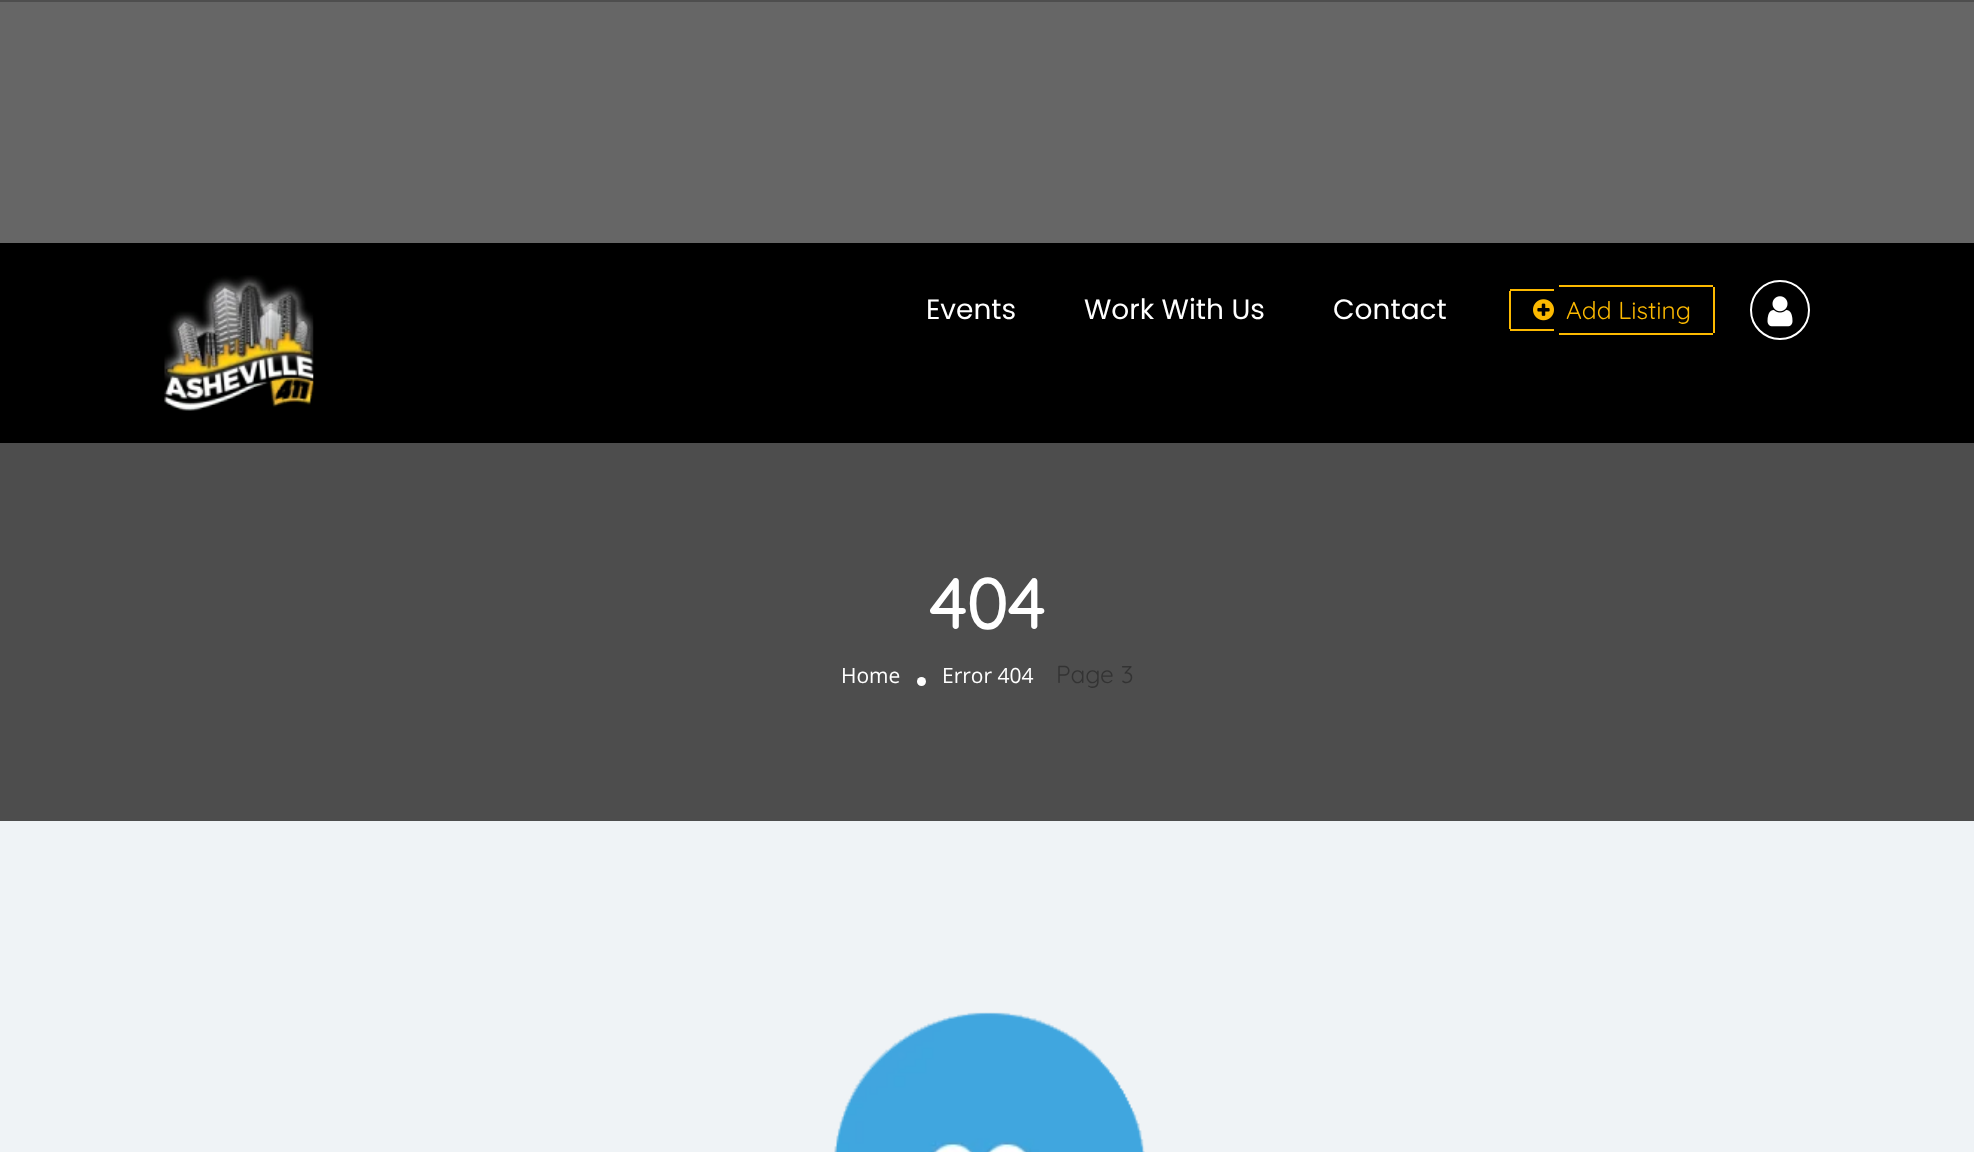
async function draw(canvas) {
  canvas.width = 1974;
  canvas.height = 1152;
  const ctx = canvas.getContext('2d');
  ctx.miterLimit = 4;
  ctx.fontKerning = 'normal';
  function label(s, x, y, font, color) {
    ctx.font = font;
    ctx.fillStyle = color;
    ctx.fillText(s, x, y);
  }
  function rect(x, y, w, h, color) {
    ctx.fillStyle = color;
    ctx.fillRect(x, y, w, h);
  }
  async function image(src, x, y, w, h) {
    const img = new Image();
    img.src = src;
    await img.decode();
    ctx.drawImage(img, x, y, w, h);
  }

  rect(0, 0, 1974, 1152, '#eff3f6');
  rect(0, 0, 1974, 2, '#4e4e4e');
  rect(0, 2, 1974, 241, '#666');
  rect(0, 243, 1974, 200, '#000');
  await image('assets/img1.png', 164, 275, 150, 136);
  label('Events', 926, 319, '28px Poppins', '#fff');
  label('Work With Us', 1084, 319, '28px Poppins', '#fff');
  label('Contact', 1333, 319, '28px Poppins', '#fff');
  rect(1510, 289, 44, 2, '#fcb900');
  rect(1510, 329, 44, 2, '#fcb900');
  rect(1509, 291, 2, 38, '#fcb900');
  rect(1559, 285, 154, 2, '#fcb900');
  rect(1713, 287, 2, 46, '#fcb900');
  rect(1559, 333, 154, 2, '#fcb900');
  await image('assets/img2.png', 1533, 299, 21, 22);
  label('Add Listing', 1566, 319, '300 24.5px Quicksand', '#fcb900');
  ctx.beginPath();
  ctx.arc(1780, 310, 29, 0, 2 * Math.PI);
  ctx.strokeStyle = '#fff';
  ctx.lineWidth = 2;
  ctx.stroke();
  await image('assets/img3.png', 1767, 296, 26, 31);
  rect(0, 443, 1974, 378, '#4d4d4d');
  label('404', 929, 629, 'bold 70px Quicksand', '#fff');
  label('Home', 841, 683, '21px Open Sans', '#fff');
  ctx.beginPath();
  ctx.arc(921.5, 681.5, 4.5, 0, 2 * Math.PI);
  ctx.fill();
  label('Error 404', 942, 683, '21px Open Sans', '#fff');
  label('Page 3', 1056, 683, '300 24.5px Quicksand', '#333');
  await image('assets/img4.png', 834, 1012, 311, 140);
}

draw(document.querySelector('canvas'));
